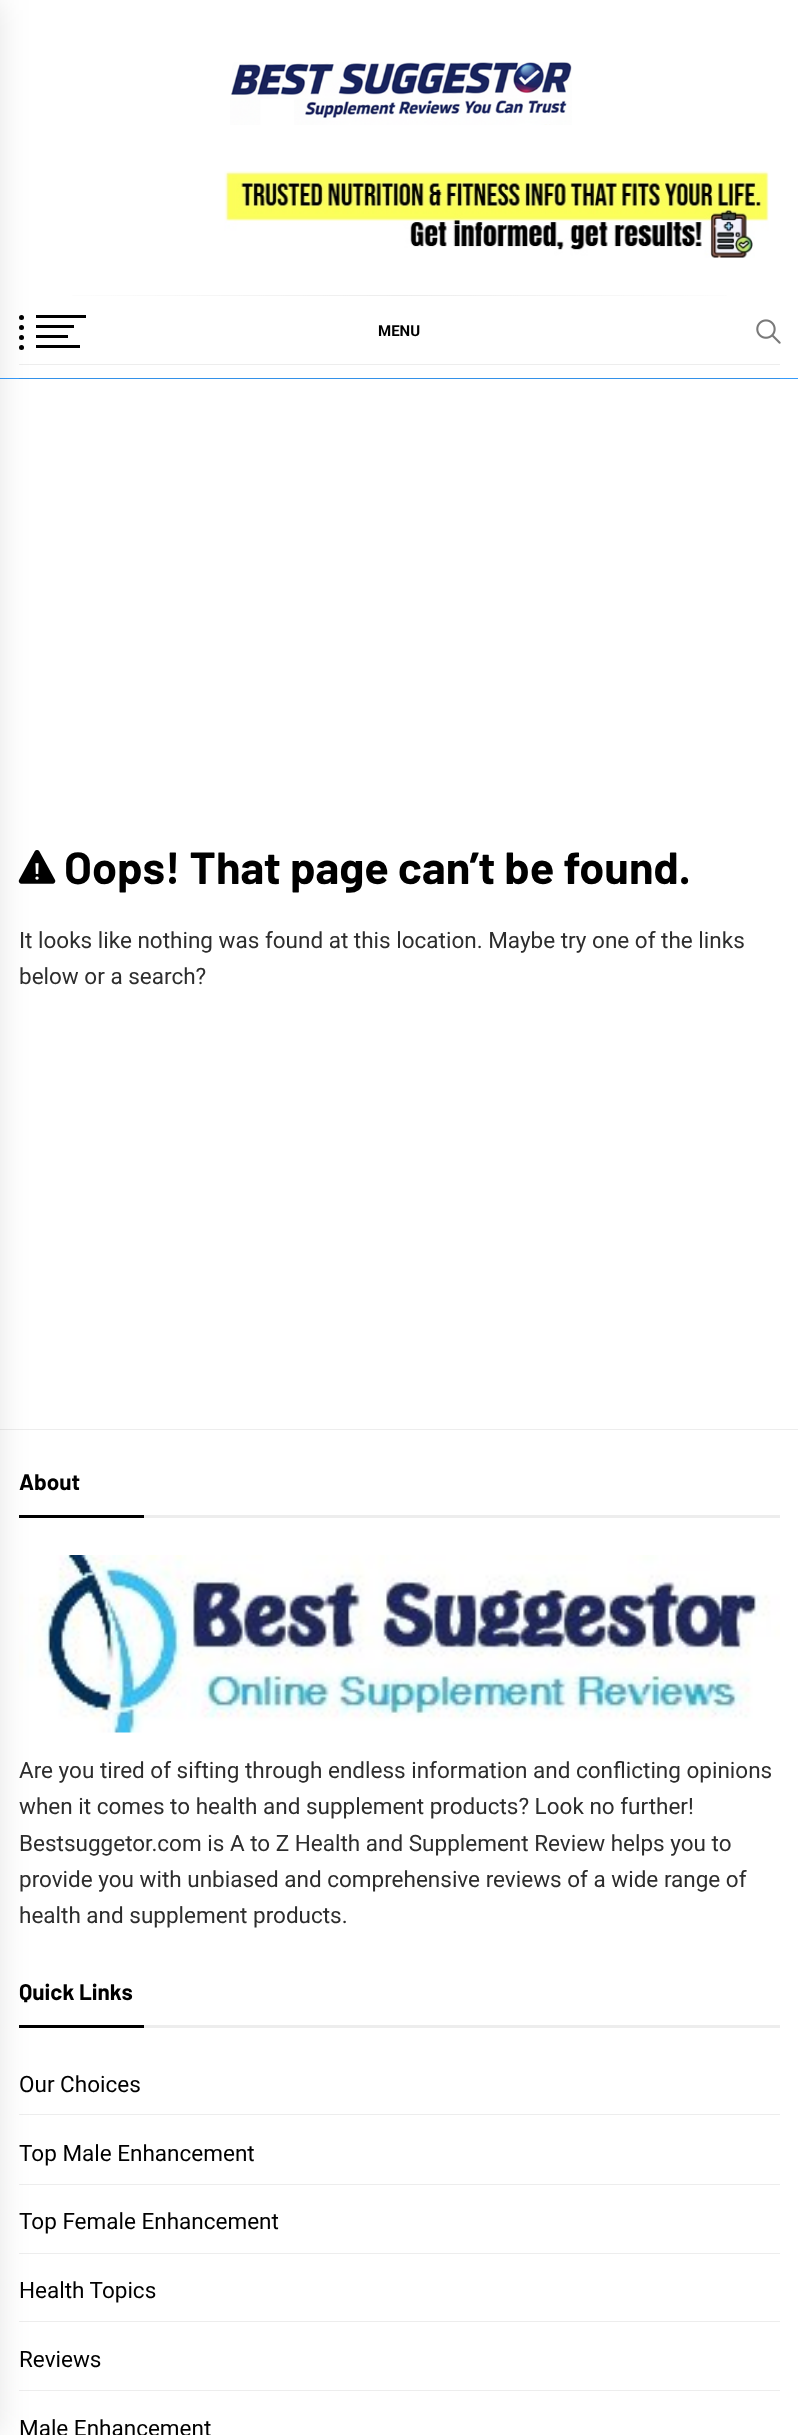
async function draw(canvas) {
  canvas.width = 798;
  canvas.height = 2435;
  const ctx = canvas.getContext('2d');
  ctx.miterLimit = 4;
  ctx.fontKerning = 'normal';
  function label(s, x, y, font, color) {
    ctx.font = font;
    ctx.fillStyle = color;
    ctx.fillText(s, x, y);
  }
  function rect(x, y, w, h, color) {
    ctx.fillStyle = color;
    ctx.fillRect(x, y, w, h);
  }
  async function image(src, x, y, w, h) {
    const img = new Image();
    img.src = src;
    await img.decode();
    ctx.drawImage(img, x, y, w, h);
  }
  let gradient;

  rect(0, 0, 798, 2435, '#fff');
  rect(19, 364, 761, 1, '#ededed');
  rect(36, 315, 50, 3, '#000');
  ctx.beginPath();
  ctx.arc(21.5, 317.5, 2.5, 0, 2 * Math.PI);
  ctx.fill();
  rect(36, 325, 38, 3, '#000');
  ctx.beginPath();
  ctx.arc(21.5, 327.5, 2.5, 0, 2 * Math.PI);
  ctx.fill();
  rect(36, 335, 32, 3, '#000');
  ctx.beginPath();
  ctx.arc(21.5, 337.5, 2.5, 0, 2 * Math.PI);
  ctx.fill();
  rect(36, 345, 44, 3, '#000');
  ctx.beginPath();
  ctx.arc(21.5, 347.5, 2.5, 0, 2 * Math.PI);
  ctx.fill();
  gradient = ctx.createLinearGradient(399, 377, 399, 379);
  gradient.addColorStop(0, '#d5e3f0');
  gradient.addColorStop(1, '#0284ff');
  ctx.fillStyle = gradient;
  ctx.fillRect(0, 378, 798, 1);
  rect(19, 378, 761, 1, '#3391e9');
  await image('assets/img4.png', 18, 850, 38, 34);
  rect(0, 1429, 798, 1, '#ededed');
  rect(19, 1515, 125, 3, '#000');
  await image('assets/img5.png', 19, 1555, 761, 178);
  rect(19, 2025, 125, 3, '#000');
  rect(19, 2114, 761, 1, '#ededed');
  rect(19, 2184, 761, 1, '#ededed');
  rect(19, 2253, 761, 1, '#ededed');
  rect(19, 2321, 761, 1, '#ededed');
  rect(19, 2390, 761, 1, '#ededed');
  ctx.fillStyle = '#0000001a';
  ctx.filter = 'blur(15.5px)';
  ctx.beginPath();
  ctx.rect(-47, 0, 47, 2435);
  ctx.fill();
  ctx.filter = 'none';
  await image('assets/img1.png', 230, 62, 342, 63);
  await image('assets/img2.png', 224, 171, 545, 87);
  gradient = ctx.createLinearGradient(780, 296, 19, 296);
  gradient.addColorStop(0, '#fff');
  gradient.addColorStop(0.5, '#ededed');
  gradient.addColorStop(1, '#fff');
  ctx.fillStyle = gradient;
  ctx.fillRect(72, 295, 655, 1);
  label('MENU', 378, 336, 'bold 15px Roboto', '#000');
  await image('assets/img3.png', 756, 319, 25, 25);
  label('Oops! That page can’t be found.', 64, 884, 'bold 45px Barlow', '#000');
  label('It looks like nothing was found at this location. Maybe try one of the links', 19, 948, '22.5px Roboto', '#2d2d2d');
  label('below or a search?', 19, 984, '22.5px Roboto', '#2d2d2d');
  rect(144, 1515, 636, 3, '#ededed');
  label('About', 19, 1490, 'bold 22.5px Barlow', '#000');
  label('Are you tired of sifting through endless information and conflicting opinions', 19, 1778, '22.5px Roboto', '#2d2d2d');
  label('when it comes to health and supplement products? Look no further!', 19, 1814, '22.5px Roboto', '#2d2d2d');
  label('Bestsuggetor.com is A to Z Health and Supplement Review helps you to', 19, 1851, '22.5px Roboto', '#2d2d2d');
  label('provide you with unbiased and comprehensive reviews of a wide range of', 19, 1887, '22.5px Roboto', '#2d2d2d');
  label('health and supplement products.', 19, 1923, '22.5px Roboto', '#2d2d2d');
  rect(144, 2025, 636, 3, '#ededed');
  label('Quick Links', 19, 2000, 'bold 22.5px Barlow', '#000');
  label('Our Choices', 19, 2092, '22.5px Roboto', '#000');
  label('Top Male Enhancement', 19, 2161, '22.5px Roboto', '#000');
  label('Top Female Enhancement', 19, 2229, '22.5px Roboto', '#000');
  label('Health Topics', 19, 2298, '22.5px Roboto', '#000');
  label('Reviews', 19, 2367, '22.5px Roboto', '#000');
  label('Male Enhancement', 19, 2436, '22.5px Roboto', '#000');
}

draw(document.querySelector('canvas'));
